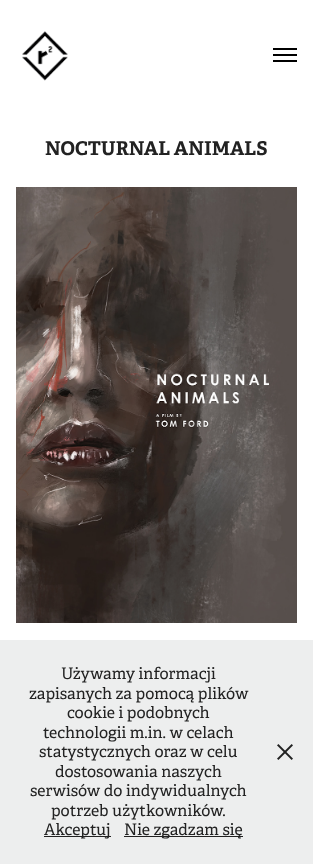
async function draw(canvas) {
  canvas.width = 313;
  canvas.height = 864;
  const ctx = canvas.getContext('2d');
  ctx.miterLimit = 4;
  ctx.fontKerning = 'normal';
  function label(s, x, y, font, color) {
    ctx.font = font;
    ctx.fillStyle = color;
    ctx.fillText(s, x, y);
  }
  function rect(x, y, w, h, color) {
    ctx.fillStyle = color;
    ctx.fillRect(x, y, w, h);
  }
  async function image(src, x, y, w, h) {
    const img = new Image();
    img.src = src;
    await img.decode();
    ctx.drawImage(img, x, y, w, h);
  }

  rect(0, 0, 313, 864, '#fff');
  await image('assets/img1.png', 22, 31, 46, 50);
  rect(273, 48, 24, 2, '#000');
  rect(273, 54, 24, 2, '#000');
  rect(273, 60, 24, 2, '#000');
  label('NOCTURNAL ANIMALS', 45, 155, 'bold 19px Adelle', '#222');
  await image('assets/img2.png', 16, 187, 281, 436);
  rect(0, 640, 313, 224, '#edeeee');
  label('Używamy informacji', 61, 679, '16px Adelle', '#222');
  label('zapisanych za pomocą plików', 29, 699, '16px Adelle', '#222');
  label('cookie i podobnych', 67, 718, '16px Adelle', '#222');
  label('technologii m.in. w celach', 43, 738, '16px Adelle', '#222');
  label('statystycznych oraz w celu', 39, 757, '16px Adelle', '#222');
  label('dostosowania naszych', 55, 777, '16px Adelle', '#222');
  label('serwisów do indywidualnych', 30, 796, '16px Adelle', '#222');
  label('potrzeb użytkowników.', 51, 816, '16px Adelle', '#222');
  rect(44, 836, 67, 1, '#212121');
  label('Akceptuj', 44, 835, '16px Adelle', '#222');
  rect(124, 836, 119, 1, '#212121');
  label('Nie zgadzam się', 124, 835, '16px Adelle', '#222');
  await image('assets/img3.png', 277, 744, 16, 16);
}

draw(document.querySelector('canvas'));
